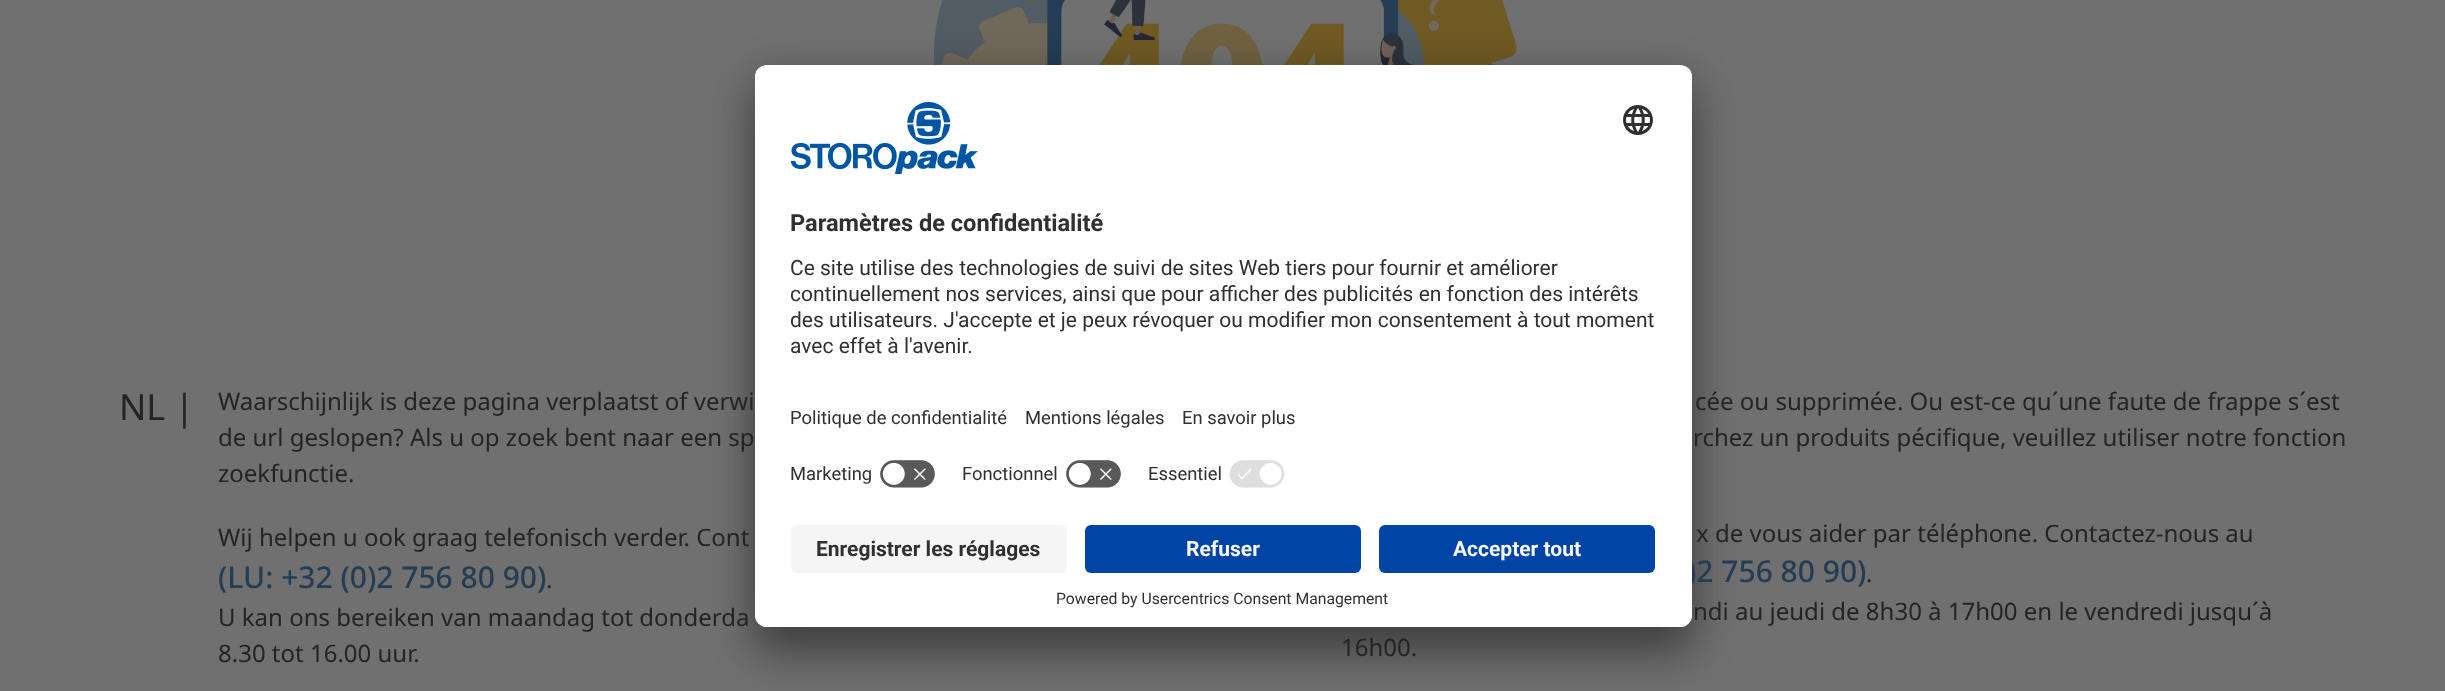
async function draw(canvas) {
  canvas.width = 2445;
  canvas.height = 691;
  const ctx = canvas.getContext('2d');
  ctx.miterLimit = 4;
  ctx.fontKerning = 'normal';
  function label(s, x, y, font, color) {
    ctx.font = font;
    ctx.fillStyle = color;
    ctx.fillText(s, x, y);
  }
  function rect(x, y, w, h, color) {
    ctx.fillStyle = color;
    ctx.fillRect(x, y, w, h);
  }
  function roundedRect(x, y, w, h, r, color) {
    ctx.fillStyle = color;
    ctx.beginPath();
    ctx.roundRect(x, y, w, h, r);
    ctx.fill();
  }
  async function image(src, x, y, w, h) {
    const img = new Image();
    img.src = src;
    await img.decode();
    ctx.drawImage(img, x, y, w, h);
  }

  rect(0, 0, 2445, 691, '#707070');
  await image('assets/img5.png', 933, 0, 584, 65);
  ctx.fillStyle = '#0000004d';
  ctx.filter = 'blur(21px)';
  ctx.beginPath();
  ctx.roundRect(755, 95, 937, 562, 12);
  ctx.fill();
  ctx.filter = 'none';
  ctx.fillStyle = '#00000038';
  ctx.filter = 'blur(19.5px)';
  ctx.beginPath();
  ctx.roundRect(755, 72, 937, 563, 12);
  ctx.fill();
  ctx.filter = 'none';
  label(')2 756 80 90)', 1687, 582, '500 30px Noto Sans', '#243d55');
  roundedRect(755, 65, 937, 562, 12, '#fff');
  ctx.save();
  ctx.beginPath();
  ctx.roundRect(755, 65, 937, 562, 12);
  ctx.clip();
  ctx.beginPath();
  ctx.roundRect(755, 65, 937, 448, [12, 12, 0, 0]);
  ctx.clip();
  rect(755, 66, 937, 447, '#fff');
  rect(755, 66, 937, 387, '#fff');
  ctx.restore();
  await image('assets/img1.png', 791, 102, 187, 72);
  await image('assets/img2.png', 1623, 105, 30, 30);
  label('Paramètres de confidentialité', 790, 231, 'bold 23.6px Roboto', '#303030');
  label('Ce site utilise des technologies de suivi de sites Web tiers pour fournir et améliorer', 790, 275, '21px Roboto', '#303030');
  ctx.save();
  ctx.beginPath();
  ctx.rect(791, 249, 865, 117);
  ctx.clip();
  label('continuellement nos services, ainsi que pour afficher des publicités en fonction des intérêts', 790, 301, '21px Roboto', '#303030');
  label('des utilisateurs. J\'accepte et je peux révoquer ou modifier mon consentement à tout moment', 790, 327, '21px Roboto', '#303030');
  ctx.restore();
  label('avec effet à l\'avenir.', 790, 353, '21px Roboto', '#303030');
  label('Politique de confidentialité', 790, 424, '18.4px Roboto', '#303030');
  label('Mentions légales', 1025, 424, '18.4px Roboto', '#303030');
  label('En savoir plus', 1182, 424, '18.4px Roboto', '#303030');
  label('Marketing', 790, 480, '18.4px Roboto', '#303030');
  await image('assets/img3.png', 880, 460, 55, 28);
  label('Fonctionnel', 962, 480, '18.4px Roboto', '#303030');
  await image('assets/img3.png', 1066, 460, 55, 28);
  label('Essentiel', 1148, 480, '18.4px Roboto', '#303030');
  await image('assets/img4.png', 1229, 460, 56, 28);
  ctx.fillStyle = '#fff';
  ctx.beginPath();
  ctx.roundRect(755, 513, 937, 114, [0, 0, 12, 12]);
  ctx.fill();
  roundedRect(791, 525, 276, 48, 6, '#f5f5f5');
  label('Enregistrer les réglages', 816, 556, 'bold 21px Roboto', '#303030');
  roundedRect(1085, 525, 276, 48, 6, '#0045a5');
  label('Refuser', 1186, 556, 'bold 21px Roboto', '#fafafa');
  roundedRect(1379, 525, 276, 48, 6, '#0045a5');
  label('Accepter tout', 1453, 556, 'bold 21px Roboto', '#fafafa');
  label('Powered by Usercentrics Consent Management', 1056, 604, '15.75px Roboto', '#303030');
  label('NL |', 119, 420, '36px Noto Sans', '#242424');
  label('Waarschijnlijk is deze pagina verplaatst of verwi', 218, 410, '24px Noto Sans', '#242424');
  label('de url geslopen? Als u op zoek bent naar een sp', 218, 446, '24px Noto Sans', '#242424');
  label('zoekfunctie.', 218, 482, '24px Noto Sans', '#242424');
  label('Wij helpen u ook graag telefonisch verder. Cont', 218, 546, '24px Noto Sans', '#242424');
  label('(LU: +32 (0)2 756 80 90)', 218, 588, '500 30px Noto Sans', '#243d55');
  label('.', 546, 588, '24px Noto Sans', '#242424');
  label('U kan ons bereiken van maandag tot donderda', 218, 626, '24px Noto Sans', '#242424');
  label('8.30 tot 16.00 uur.', 218, 662, '24px Noto Sans', '#242424');
  label('cée ou supprimée. Ou est-ce qu´une faute de frappe s´est', 1695, 410, '24px Noto Sans', '#242424');
  label('rchez un produits pécifique, veuillez utiliser notre fonction', 1693, 446, '24px Noto Sans', '#242424');
  label('x de vous aider par téléphone. Contactez-nous au', 1696, 542, '24px Noto Sans', '#242424');
  label('.', 1866, 582, '24px Noto Sans', '#242424');
  label('ndi au jeudi de 8h30 à 17h00 en le vendredi jusqu´à', 1693, 620, '24px Noto Sans', '#242424');
  label('16h00.', 1341, 656, '24px Noto Sans', '#242424');
}

draw(document.querySelector('canvas'));
